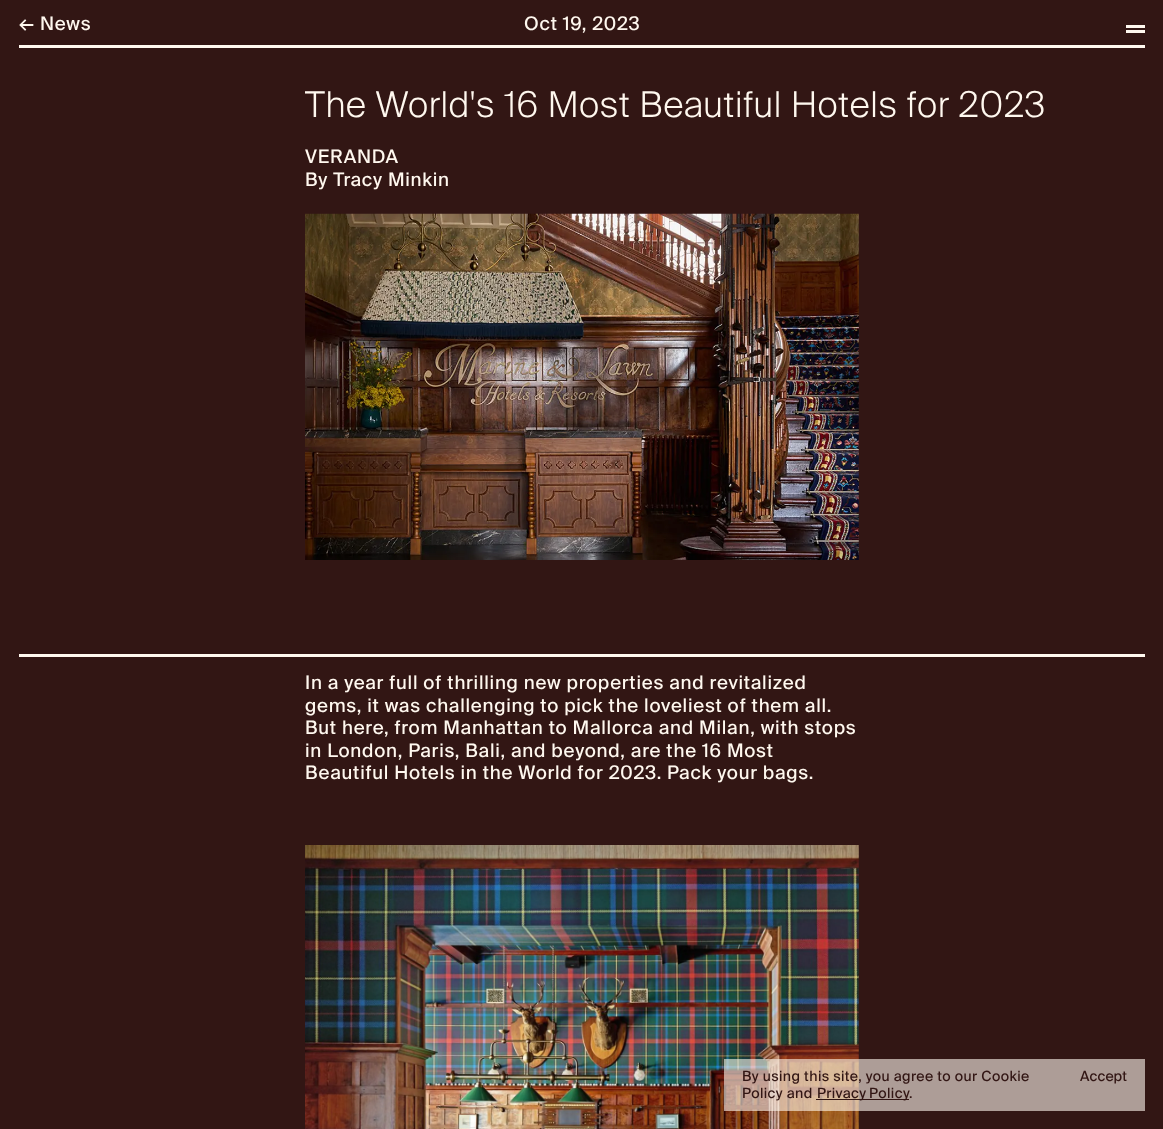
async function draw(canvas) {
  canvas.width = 1163;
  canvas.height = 1129;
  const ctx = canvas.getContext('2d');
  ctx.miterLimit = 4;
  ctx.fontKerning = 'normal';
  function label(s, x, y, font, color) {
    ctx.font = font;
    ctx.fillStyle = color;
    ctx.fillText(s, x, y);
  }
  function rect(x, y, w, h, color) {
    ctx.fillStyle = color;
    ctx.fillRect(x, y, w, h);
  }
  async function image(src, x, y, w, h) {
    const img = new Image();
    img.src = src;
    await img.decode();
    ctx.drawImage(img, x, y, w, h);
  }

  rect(0, 0, 1163, 1129, '#321614');
  rect(19, 45, 1126, 3, '#fff8ef');
  ctx.letterSpacing = '0.75px';
  label('← News', 19, 30, '18.75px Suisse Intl', '#fff8ef');
  label('Oct 19, 2023', 524, 30, '18.75px Suisse Intl', '#fff8ef');
  rect(1126, 25, 19, 3, '#fff8ef');
  rect(1126, 30, 19, 3, '#fff8ef');
  ctx.letterSpacing = '0.7px';
  label('The World\'s 16 Most Beautiful Hotels for 2023', 305, 117, '300 35.6px Suisse Intl', '#fff8ef');
  ctx.letterSpacing = '0.75px';
  label('VERANDA', 305, 163, '18.75px Suisse Intl', '#fff8ef');
  label('By Tracy Minkin', 305, 186, '18.75px Suisse Intl', '#fff8ef');
  await image('assets/img1.png', 305, 213, 554, 347);
  rect(19, 654, 1126, 3, '#fff8ef');
  label('In a year full of thrilling new properties and revitalized', 305, 689, '18.75px Suisse Intl', '#fff8ef');
  label('gems, it was challenging to pick the loveliest of them all.', 305, 712, '18.75px Suisse Intl', '#fff8ef');
  label('But here, from Manhattan to Mallorca and Milan, with stops', 305, 734, '18.75px Suisse Intl', '#fff8ef');
  label('in London, Paris, Bali, and beyond, are the 16 Most', 305, 757, '18.75px Suisse Intl', '#fff8ef');
  label('Beautiful Hotels in the World for 2023. Pack your bags.', 305, 779, '18.75px Suisse Intl', '#fff8ef');
  await image('assets/img2.png', 305, 845, 554, 284);
  rect(724, 1059, 421, 52, '#fff8ef99');
  ctx.letterSpacing = '0.4px';
  label('By using this site, you agree to our Cookie', 742, 1081, '14.1px Suisse Intl', '#321614');
  label('Policy and', 742, 1098, '14.1px Suisse Intl', '#321614');
  rect(816, 1099, 93, 1, '#321614');
  ctx.wordSpacing = '-1px';
  label('Privacy Policy', 817, 1098, '14.1px Suisse Intl', '#321614');
  ctx.wordSpacing = '0px';
  label('.', 909, 1098, '14.1px Suisse Intl', '#321614');
  ctx.letterSpacing = '0px';
  label('Accept', 1080, 1081, '14.1px Suisse Intl', '#321614');
}

draw(document.querySelector('canvas'));
